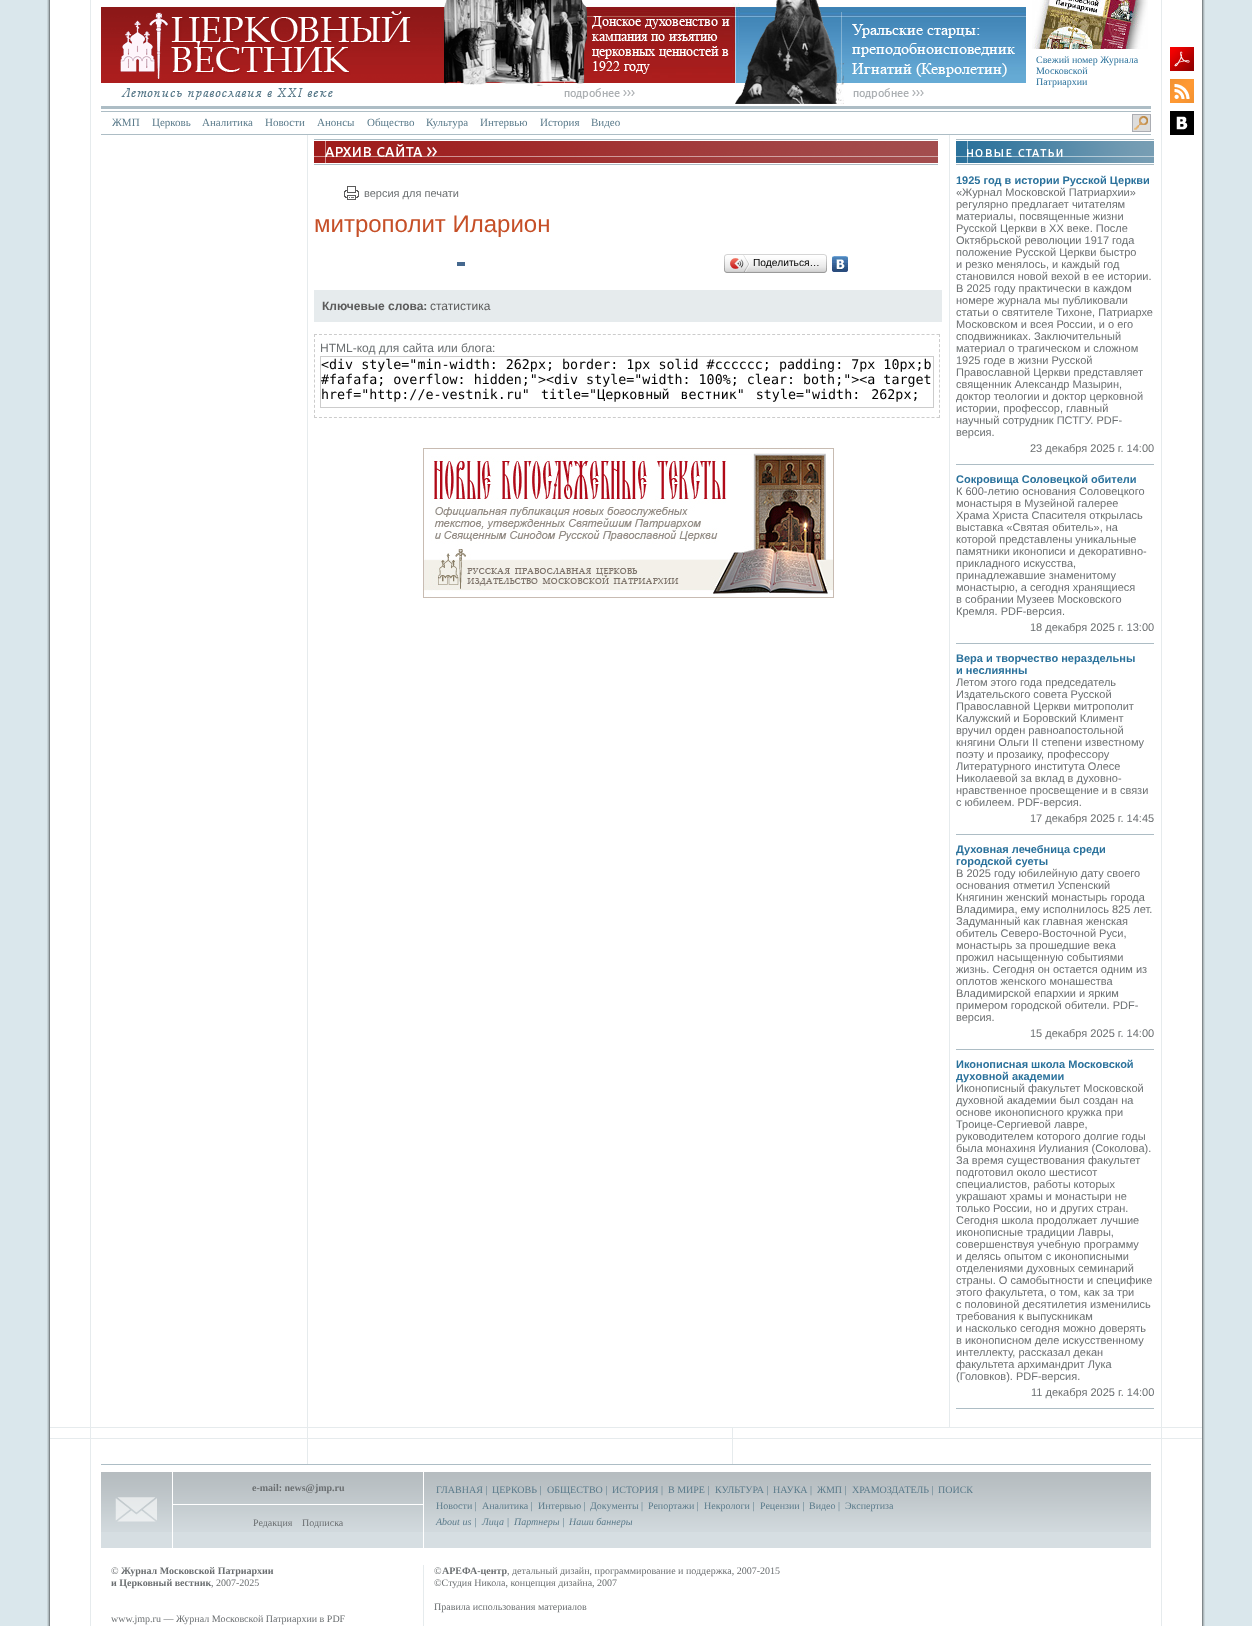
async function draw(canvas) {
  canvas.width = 1252;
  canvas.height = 1626;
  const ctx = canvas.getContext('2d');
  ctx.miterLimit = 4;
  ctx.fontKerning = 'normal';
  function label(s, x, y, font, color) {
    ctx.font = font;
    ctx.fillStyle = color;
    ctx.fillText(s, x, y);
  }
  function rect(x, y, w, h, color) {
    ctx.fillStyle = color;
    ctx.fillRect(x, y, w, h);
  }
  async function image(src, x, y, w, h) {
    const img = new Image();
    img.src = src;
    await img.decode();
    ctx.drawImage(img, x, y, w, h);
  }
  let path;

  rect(0, 0, 1252, 1626, '#dae7ec');
  rect(50, 0, 1152, 1626, '#fff');
  rect(1204, 0, 1, 1626, '#c9d5d9');
  rect(47, 0, 1, 1626, '#c9d5d9');
  rect(1203, 0, 1, 1626, '#aeb9bd');
  rect(48, 0, 1, 1626, '#aeb9bd');
  rect(1202, 0, 1, 1626, '#7f878a');
  rect(49, 0, 1, 1626, '#7f878a');
  rect(1161, 0, 1, 1427, '#e6ebed');
  rect(90, 0, 1, 1427, '#e6ebed');
  rect(101, 106, 1050, 3, '#adbdc5');
  await image('assets/img1.png', 101, 7, 343, 93);
  await image('assets/img2.png', 444, 3, 582, 80);
  await image('assets/img3.png', 444, 0, 286, 99);
  await image('assets/img4.png', 735, 0, 280, 104);
  await image('assets/img5.png', 1032, 0, 116, 49);
  label('Свежий номер Журнала', 1036, 63, '10px Liberation Serif', '#2a719b');
  label('Московской', 1036, 74, '10px Liberation Serif', '#2a719b');
  label('Патриархии', 1036, 85, '10px Liberation Serif', '#2a719b');
  rect(101, 111, 1050, 1, '#adbdc5');
  rect(101, 134, 1050, 1, '#adbdc5');
  label('ЖМП', 112, 126, '11px Liberation Serif', '#5b7b8b');
  label('Церковь', 152, 126, '11px Liberation Serif', '#5b7b8b');
  label('Аналитика', 202, 126, '11px Liberation Serif', '#5b7b8b');
  label('Новости', 265, 126, '11px Liberation Serif', '#5b7b8b');
  label('Анонсы', 317, 126, '11px Liberation Serif', '#5b7b8b');
  label('Общество', 367, 126, '11px Liberation Serif', '#5b7b8b');
  label('Культура', 426, 126, '11px Liberation Serif', '#5b7b8b');
  label('Интервью', 480, 126, '11px Liberation Serif', '#5b7b8b');
  label('История', 540, 126, '11px Liberation Serif', '#5b7b8b');
  label('Видео', 591, 126, '11px Liberation Serif', '#5b7b8b');
  await image('assets/img6.png', 1132, 114, 19, 18);
  rect(50, 1427, 1152, 1, '#e6ebed');
  rect(949, 135, 1, 1293, '#e6ebed');
  rect(314, 139, 624, 1, '#adbdc5');
  rect(314, 164, 624, 1, '#adbdc5');
  await image('assets/img7.png', 314, 141, 624, 22);
  await image('assets/img8.png', 344, 186, 15, 14);
  label('версия для печати', 364, 197, '11px Liberation Sans', '#6b6f71');
  label('митрополит Иларион', 314, 232, '24px Liberation Sans', '#c64f27');
  rect(457, 262, 8, 4, '#45688e');
  await image('assets/img9.png', 727, 254, 97, 19);
  await image('assets/img10.png', 724, 254, 3, 19);
  await image('assets/img11.png', 730, 255, 20, 17);
  label('Поделиться…', 753, 266, '10.25px Liberation Sans', '#000');
  await image('assets/img12.png', 824, 254, 3, 19);
  await image('assets/img13.png', 832, 256, 16, 16);
  rect(314, 290, 628, 32, '#e6ebed');
  label('Ключевые слова:', 322, 310, 'bold 12px Liberation Sans', '#5b5b5b');
  label('статистика', 430, 310, '12px Liberation Sans', '#5b5b5b');
  path = new Path2D('M314 334.5H940');
  ctx.strokeStyle = '#ccc';
  ctx.setLineDash([3, 1.98]);
  ctx.stroke(path);
  path = new Path2D('M939.5 334V418');
  ctx.setLineDash([3, 2.06]);
  ctx.stroke(path);
  path = new Path2D('M314 417.5H940');
  ctx.setLineDash([3, 1.98]);
  ctx.stroke(path);
  path = new Path2D('M314.5 334V418');
  ctx.setLineDash([3, 2.06]);
  ctx.stroke(path);
  label('HTML-код для сайта или блога:', 320, 352, '12px Liberation Sans', '#6b6f71');
  ctx.setLineDash([]);
  ctx.strokeRect(320.5, 356.5, 613, 51);
  label('<div style="min-width: 262px; border: 1px solid #cccccc; padding: 7px 10px;b', 321, 369, '13.35px DejaVu Sans Mono', '#000');
  label('#fafafa; overflow: hidden;"><div style="width: 100%; clear: both;"><a target', 321, 384, '13.35px DejaVu Sans Mono', '#000');
  ctx.wordSpacing = '3px';
  label('href="http://e-vestnik.ru" title="Церковный вестник" style="width: 262px;', 321, 399, '13.35px DejaVu Sans Mono', '#000');
  await image('assets/img14.png', 423, 448, 411, 150);
  rect(956, 139, 198, 1, '#adbdc5');
  rect(956, 164, 198, 1, '#adbdc5');
  await image('assets/img15.png', 956, 141, 198, 22);
  rect(956, 464, 198, 1, '#adbdc5');
  ctx.wordSpacing = '0px';
  label('1925 год в истории Русской Церкви', 956, 184, 'bold 11px Liberation Sans', '#2a719b');
  label('«Журнал Московской Патриархии»', 956, 196, '11px Liberation Sans', '#6b6f71');
  label('регулярно предлагает читателям', 956, 208, '11px Liberation Sans', '#6b6f71');
  label('материалы, посвященные жизни', 956, 220, '11px Liberation Sans', '#6b6f71');
  label('Русской Церкви в ХХ веке. После', 956, 232, '11px Liberation Sans', '#6b6f71');
  label('Октябрьской революции 1917 года', 956, 244, '11px Liberation Sans', '#6b6f71');
  label('положение Русской Церкви быстро', 956, 256, '11px Liberation Sans', '#6b6f71');
  label('и резко менялось, и каждый год', 956, 268, '11px Liberation Sans', '#6b6f71');
  label('становился новой вехой в ее истории.', 956, 280, '11px Liberation Sans', '#6b6f71');
  label('В 2025 году практически в каждом', 956, 292, '11px Liberation Sans', '#6b6f71');
  label('номере журнала мы публиковали', 956, 304, '11px Liberation Sans', '#6b6f71');
  label('статьи о святителе Тихоне, Патриархе', 956, 316, '11px Liberation Sans', '#6b6f71');
  label('Московском и всея России, и о его', 956, 328, '11px Liberation Sans', '#6b6f71');
  label('сподвижниках. Заключительный', 956, 340, '11px Liberation Sans', '#6b6f71');
  label('материал о трагическом и сложном', 956, 352, '11px Liberation Sans', '#6b6f71');
  label('1925 годе в жизни Русской', 956, 364, '11px Liberation Sans', '#6b6f71');
  label('Православной Церкви представляет', 956, 376, '11px Liberation Sans', '#6b6f71');
  label('священник Александр Мазырин,', 956, 388, '11px Liberation Sans', '#6b6f71');
  label('доктор теологии и доктор церковной', 956, 400, '11px Liberation Sans', '#6b6f71');
  label('истории, профессор, главный', 956, 412, '11px Liberation Sans', '#6b6f71');
  label('научный сотрудник ПСТГУ. PDF-', 956, 424, '11px Liberation Sans', '#6b6f71');
  label('версия.', 956, 436, '11px Liberation Sans', '#6b6f71');
  label('23 декабря 2025 г. 14:00', 1030, 452, '11px Liberation Sans', '#6b6f71');
  rect(956, 643, 198, 1, '#adbdc5');
  label('Сокровища Соловецкой обители', 956, 483, 'bold 11px Liberation Sans', '#2a719b');
  label('К 600-летию основания Соловецкого', 956, 495, '11px Liberation Sans', '#6b6f71');
  label('монастыря в Музейной галерее', 956, 507, '11px Liberation Sans', '#6b6f71');
  label('Храма Христа Спасителя открылась', 956, 519, '11px Liberation Sans', '#6b6f71');
  label('выставка «Святая обитель», на', 956, 531, '11px Liberation Sans', '#6b6f71');
  label('которой представлены уникальные', 956, 543, '11px Liberation Sans', '#6b6f71');
  label('памятники иконописи и декоративно-', 956, 555, '11px Liberation Sans', '#6b6f71');
  label('прикладного искусства,', 956, 567, '11px Liberation Sans', '#6b6f71');
  label('принадлежавшие знаменитому', 956, 579, '11px Liberation Sans', '#6b6f71');
  label('монастырю, а сегодня хранящиеся', 956, 591, '11px Liberation Sans', '#6b6f71');
  label('в собрании Музеев Московского', 956, 603, '11px Liberation Sans', '#6b6f71');
  label('Кремля. PDF-версия.', 956, 615, '11px Liberation Sans', '#6b6f71');
  label('18 декабря 2025 г. 13:00', 1030, 631, '11px Liberation Sans', '#6b6f71');
  rect(956, 834, 198, 1, '#adbdc5');
  label('Вера и творчество нераздельны', 956, 662, 'bold 11px Liberation Sans', '#2a719b');
  label('и неслиянны', 956, 674, 'bold 11px Liberation Sans', '#2a719b');
  label('Летом этого года председатель', 956, 686, '11px Liberation Sans', '#6b6f71');
  label('Издательского совета Русской', 956, 698, '11px Liberation Sans', '#6b6f71');
  label('Православной Церкви митрополит', 956, 710, '11px Liberation Sans', '#6b6f71');
  label('Калужский и Боровский Климент', 956, 722, '11px Liberation Sans', '#6b6f71');
  label('вручил орден равноапостольной', 956, 734, '11px Liberation Sans', '#6b6f71');
  label('княгини Ольги II степени известному', 956, 746, '11px Liberation Sans', '#6b6f71');
  label('поэту и прозаику, профессору', 956, 758, '11px Liberation Sans', '#6b6f71');
  label('Литературного института Олесе', 956, 770, '11px Liberation Sans', '#6b6f71');
  label('Николаевой за вклад в духовно-', 956, 782, '11px Liberation Sans', '#6b6f71');
  label('нравственное просвещение и в связи', 956, 794, '11px Liberation Sans', '#6b6f71');
  label('с юбилеем. PDF-версия.', 956, 806, '11px Liberation Sans', '#6b6f71');
  label('17 декабря 2025 г. 14:45', 1030, 822, '11px Liberation Sans', '#6b6f71');
  rect(956, 1049, 198, 1, '#adbdc5');
  label('Духовная лечебница среди', 956, 853, 'bold 11px Liberation Sans', '#2a719b');
  label('городской суеты', 956, 865, 'bold 11px Liberation Sans', '#2a719b');
  label('В 2025 году юбилейную дату своего', 956, 877, '11px Liberation Sans', '#6b6f71');
  label('основания отметил Успенский', 956, 889, '11px Liberation Sans', '#6b6f71');
  label('Княгинин женский монастырь города', 956, 901, '11px Liberation Sans', '#6b6f71');
  label('Владимира, ему исполнилось 825 лет.', 956, 913, '11px Liberation Sans', '#6b6f71');
  label('Задуманный как главная женская', 956, 925, '11px Liberation Sans', '#6b6f71');
  label('обитель Северо-Восточной Руси,', 956, 937, '11px Liberation Sans', '#6b6f71');
  label('монастырь за прошедшие века', 956, 949, '11px Liberation Sans', '#6b6f71');
  label('прожил насыщенную событиями', 956, 961, '11px Liberation Sans', '#6b6f71');
  label('жизнь. Сегодня он остается одним из', 956, 973, '11px Liberation Sans', '#6b6f71');
  label('оплотов женского монашества', 956, 985, '11px Liberation Sans', '#6b6f71');
  label('Владимирской епархии и ярким', 956, 997, '11px Liberation Sans', '#6b6f71');
  label('примером городской обители. PDF-', 956, 1009, '11px Liberation Sans', '#6b6f71');
  label('версия.', 956, 1021, '11px Liberation Sans', '#6b6f71');
  label('15 декабря 2025 г. 14:00', 1030, 1037, '11px Liberation Sans', '#6b6f71');
  rect(956, 1408, 198, 1, '#adbdc5');
  label('Иконописная школа Московской', 956, 1068, 'bold 11px Liberation Sans', '#2a719b');
  label('духовной академии', 956, 1080, 'bold 11px Liberation Sans', '#2a719b');
  label('Иконописный факультет Московской', 956, 1092, '11px Liberation Sans', '#6b6f71');
  label('духовной академии был создан на', 956, 1104, '11px Liberation Sans', '#6b6f71');
  label('основе иконописного кружка при', 956, 1116, '11px Liberation Sans', '#6b6f71');
  label('Троице-Сергиевой лавре,', 956, 1128, '11px Liberation Sans', '#6b6f71');
  label('руководителем которого долгие годы', 956, 1140, '11px Liberation Sans', '#6b6f71');
  label('была монахиня Иулиания (Соколова).', 956, 1152, '11px Liberation Sans', '#6b6f71');
  label('За время существования факультет', 956, 1164, '11px Liberation Sans', '#6b6f71');
  label('подготовил около шестисот', 956, 1176, '11px Liberation Sans', '#6b6f71');
  label('специалистов, работы которых', 956, 1188, '11px Liberation Sans', '#6b6f71');
  label('украшают храмы и монастыри не', 956, 1200, '11px Liberation Sans', '#6b6f71');
  label('только России, но и других стран.', 956, 1212, '11px Liberation Sans', '#6b6f71');
  label('Сегодня школа продолжает лучшие', 956, 1224, '11px Liberation Sans', '#6b6f71');
  label('иконописные традиции Лавры,', 956, 1236, '11px Liberation Sans', '#6b6f71');
  label('совершенствуя учебную программу', 956, 1248, '11px Liberation Sans', '#6b6f71');
  label('и делясь опытом с иконописными', 956, 1260, '11px Liberation Sans', '#6b6f71');
  label('отделениями духовных семинарий', 956, 1272, '11px Liberation Sans', '#6b6f71');
  label('страны. О самобытности и специфике', 956, 1284, '11px Liberation Sans', '#6b6f71');
  label('этого факультета, о том, как за три', 956, 1296, '11px Liberation Sans', '#6b6f71');
  label('с половиной десятилетия изменились', 956, 1308, '11px Liberation Sans', '#6b6f71');
  label('требования к выпускникам', 956, 1320, '11px Liberation Sans', '#6b6f71');
  label('и насколько сегодня можно доверять', 956, 1332, '11px Liberation Sans', '#6b6f71');
  label('в иконописном деле искусственному', 956, 1344, '11px Liberation Sans', '#6b6f71');
  label('интеллекту, рассказал декан', 956, 1356, '11px Liberation Sans', '#6b6f71');
  label('факультета архимандрит Лука', 956, 1368, '11px Liberation Sans', '#6b6f71');
  label('(Головков). PDF-версия.', 956, 1380, '11px Liberation Sans', '#6b6f71');
  label('11 декабря 2025 г. 14:00', 1031, 1396, '11px Liberation Sans', '#6b6f71');
  rect(50, 1438, 1152, 1, '#e6ebed');
  rect(90, 1428, 1, 10, '#e6ebed');
  rect(307, 135, 1, 1303, '#e6ebed');
  rect(732, 1428, 1, 10, '#e6ebed');
  rect(1161, 1428, 1, 10, '#e6ebed');
  rect(1161, 1439, 1, 187, '#e6ebed');
  rect(90, 1439, 1, 187, '#e6ebed');
  rect(101, 1464, 1050, 1, '#adbdc5');
  rect(307, 1439, 1, 25, '#e6ebed');
  rect(732, 1439, 1, 25, '#e6ebed');
  rect(101, 1532, 1050, 16, '#d6dee2');
  await image('assets/img16.png', 101, 1472, 1050, 60);
  await image('assets/img17.png', 115, 1497, 42, 25);
  rect(172, 1472, 1, 76, '#fff');
  rect(173, 1504, 250, 1, '#fff');
  label('e-mail: news@jmp.ru', 252, 1491, 'bold 10px Liberation Serif', '#6b6f71');
  label('Редакция', 253, 1526, '10px Liberation Serif', '#6b6f71');
  label('Подписка', 302, 1526, '10px Liberation Serif', '#6b6f71');
  rect(423, 1472, 1, 76, '#fff');
  label('ГЛАВНАЯ |', 436, 1493, '10px Liberation Serif', '#5b7b8b');
  label('ЦЕРКОВЬ |', 492, 1493, '10px Liberation Serif', '#5b7b8b');
  label('ОБЩЕСТВО |', 547, 1493, '10px Liberation Serif', '#5b7b8b');
  label('ИСТОРИЯ |', 612, 1493, '10px Liberation Serif', '#5b7b8b');
  label('В МИРЕ |', 668, 1493, '10px Liberation Serif', '#5b7b8b');
  label('КУЛЬТУРА |', 715, 1493, '10px Liberation Serif', '#5b7b8b');
  label('НАУКА |', 773, 1493, '10px Liberation Serif', '#5b7b8b');
  label('ЖМП |', 817, 1493, '10px Liberation Serif', '#5b7b8b');
  label('ХРАМОЗДАТЕЛЬ |', 852, 1493, '10px Liberation Serif', '#5b7b8b');
  label('ПОИСК', 938, 1493, '10px Liberation Serif', '#5b7b8b');
  label('Новости |', 436, 1509, '10px Liberation Serif', '#5b7b8b');
  label('Аналитика |', 482, 1509, '10px Liberation Serif', '#5b7b8b');
  label('Интервью |', 538, 1509, '10px Liberation Serif', '#5b7b8b');
  label('Документы |', 590, 1509, '10px Liberation Serif', '#5b7b8b');
  label('Репортажи |', 648, 1509, '10px Liberation Serif', '#5b7b8b');
  label('Некрологи |', 704, 1509, '10px Liberation Serif', '#5b7b8b');
  label('Рецензии |', 760, 1509, '10px Liberation Serif', '#5b7b8b');
  label('Видео |', 809, 1509, '10px Liberation Serif', '#5b7b8b');
  label('Экспертиза', 845, 1509, '10px Liberation Serif', '#5b7b8b');
  label('About us |', 436, 1525, 'italic 10px Liberation Serif', '#5b7b8b');
  label('Лица |', 482, 1525, 'italic 10px Liberation Serif', '#5b7b8b');
  label('Партнеры |', 514, 1525, 'italic 10px Liberation Serif', '#5b7b8b');
  label('Наши баннеры', 569, 1525, 'italic 10px Liberation Serif', '#5b7b8b');
  label('©', 111, 1574, '10px Liberation Serif', '#6b6f71');
  label('Журнал Московской Патриархии', 121, 1574, 'bold 10px Liberation Serif', '#6b6f71');
  label('и Церковный вестник', 111, 1586, 'bold 10px Liberation Serif', '#6b6f71');
  label(', 2007-2025', 211, 1586, '10px Liberation Serif', '#6b6f71');
  label('www.jmp.ru — Журнал Московской Патриархии в PDF', 111, 1622, '10px Liberation Serif', '#6b6f71');
  rect(423, 1565, 1, 61, '#e6ebed');
  label('©', 434, 1574, '10px Liberation Serif', '#6b6f71');
  label('АРЕФА-центр', 442, 1574, 'bold 10px Liberation Serif', '#6b6f71');
  label(', детальный дизайн, программирование и поддержка, 2007-2015', 507, 1574, '10px Liberation Serif', '#6b6f71');
  label('©Студия Никола, концепция дизайна, 2007', 434, 1586, '10px Liberation Serif', '#6b6f71');
  label('Правила использования материалов', 434, 1610, '10px Liberation Serif', '#6b6f71');
  await image('assets/img18.png', 1170, 47, 24, 24);
  await image('assets/img19.png', 1170, 79, 24, 24);
  await image('assets/img20.png', 1170, 111, 24, 24);
}

draw(document.querySelector('canvas'));
